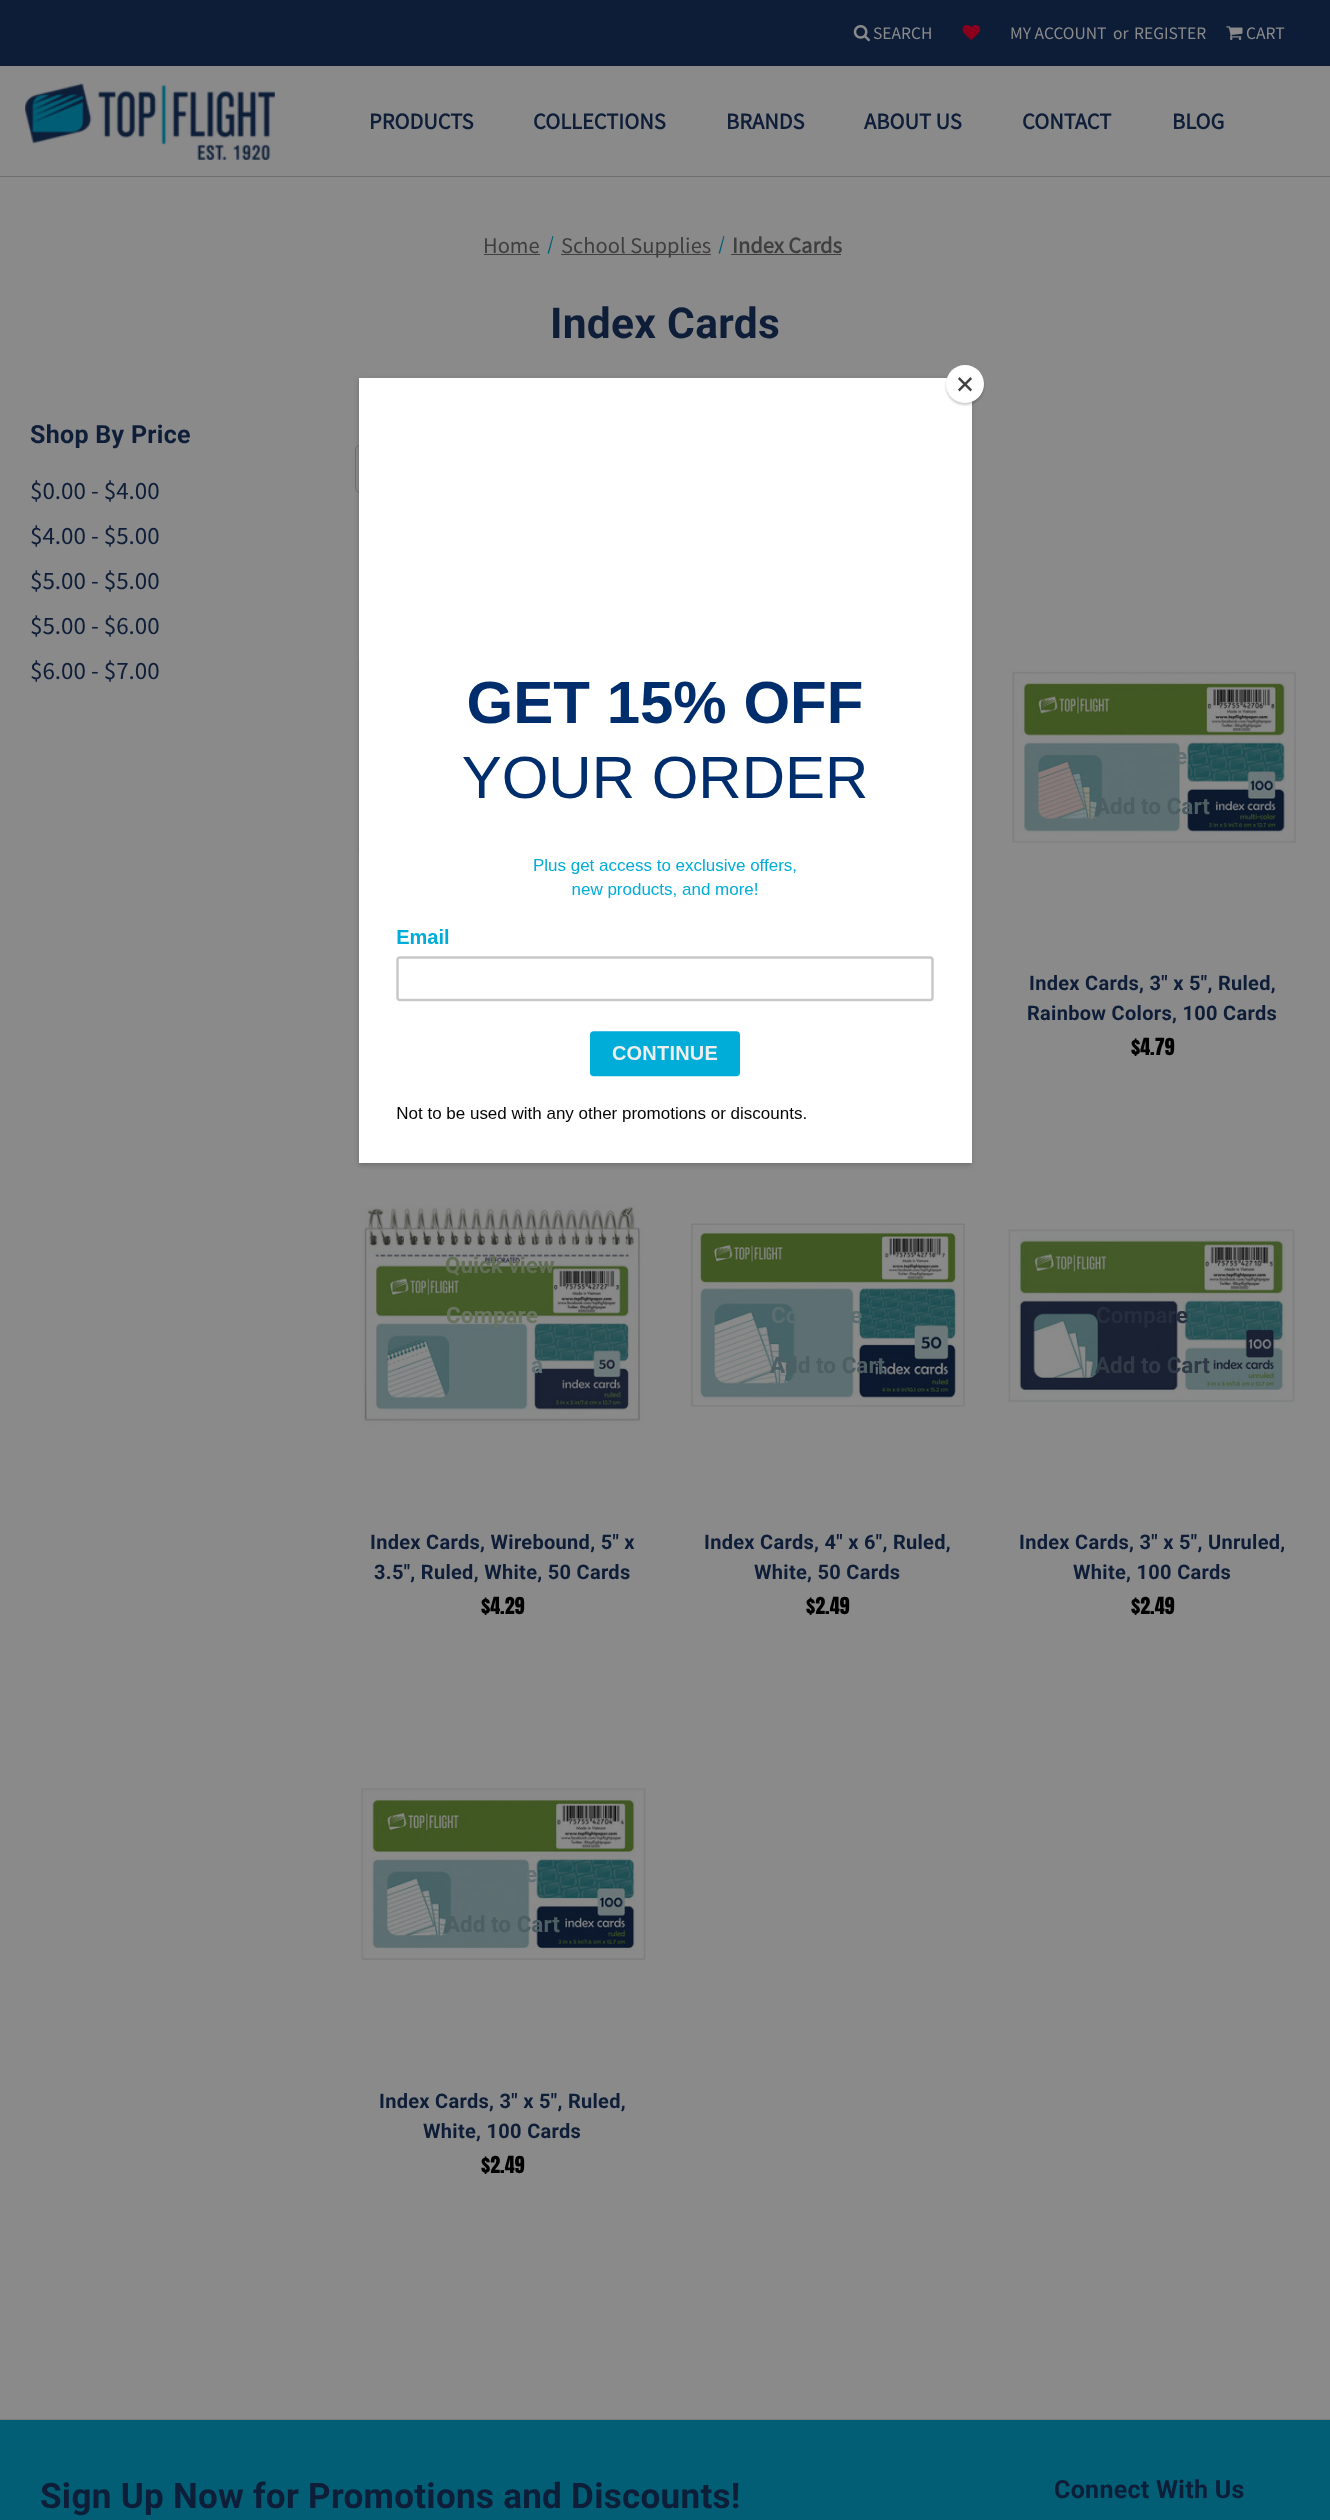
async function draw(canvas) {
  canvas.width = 1330;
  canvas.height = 2520;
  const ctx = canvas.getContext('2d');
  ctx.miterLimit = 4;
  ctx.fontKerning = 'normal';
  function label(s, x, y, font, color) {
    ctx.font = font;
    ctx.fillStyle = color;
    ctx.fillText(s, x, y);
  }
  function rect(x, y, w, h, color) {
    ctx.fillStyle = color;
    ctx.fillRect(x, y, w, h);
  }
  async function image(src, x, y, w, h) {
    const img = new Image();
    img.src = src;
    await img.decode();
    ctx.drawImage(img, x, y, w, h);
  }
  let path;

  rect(0, 0, 1330, 2520, '#8a8a8a');
  rect(0, 0, 1330, 66, '#0d1d38');
  await image('assets/img1.png', 853, 25, 17, 17);
  label('SEARCH', 873, 39, '17.5px Source Sans Pro', '#8a8a8a');
  await image('assets/img2.png', 962, 25, 18, 15);
  label('MY ACCOUNT', 1010, 39, '17.5px Source Sans Pro', '#8a8a8a');
  label('or', 1113, 39, '17.5px Source Sans Pro', '#8a8a8a');
  label('REGISTER', 1134, 39, '17.5px Source Sans Pro', '#8a8a8a');
  await image('assets/img3.png', 1226, 26, 17, 14);
  label('CART', 1246, 39, '17.5px Source Sans Pro', '#8a8a8a');
  rect(0, 176, 1330, 1, '#6e6e6e');
  await image('assets/img4.png', 25, 83, 250, 77);
  label('PRODUCTS', 369, 129, 'bold 22.5px Source Sans Pro', '#0e1d38');
  label('COLLECTIONS', 533, 129, 'bold 22.5px Source Sans Pro', '#0e1d38');
  label('BRANDS', 726, 129, 'bold 22.5px Source Sans Pro', '#0e1d38');
  label('ABOUT US', 864, 129, 'bold 22.5px Source Sans Pro', '#0e1d38');
  label('CONTACT', 1022, 129, 'bold 22.5px Source Sans Pro', '#0e1d38');
  label('BLOG', 1172, 129, 'bold 22.5px Source Sans Pro', '#0e1d38');
  label('Home', 483, 253, '22.5px Source Sans Pro', '#3f3f3f');
  rect(484, 254, 56, 1, '#3f3f3f');
  ctx.fillStyle = '#005d75';
  path = new Path2D('M552.5 236H553.5L549 253.5H547.5Z');
  ctx.fill(path);
  rect(561, 254, 150, 1, '#3f3f3f');
  label('School Supplies', 561, 253, '22.5px Source Sans Pro', '#3f3f3f');
  ctx.fillStyle = '#005d75';
  path = new Path2D('M723.5 236H724.5L720 253.5H718.5Z');
  ctx.fill(path);
  label('Index Cards', 732, 253, 'bold 22.5px Source Sans Pro', '#3f3f3f');
  rect(731, 254, 110, 1, '#3f3f3f');
  ctx.letterSpacing = '0.3px';
  label('Index Cards', 550, 338, 'bold 42.5px Roboto', '#0e1d38');
  label('Shop By Price', 30, 443, 'bold 25px Roboto', '#0e1d38');
  ctx.letterSpacing = '0px';
  label('$0.00 - $4.00', 30, 499, '25px Source Sans Pro', '#0e1d38');
  label('$4.00 - $5.00', 30, 544, '25px Source Sans Pro', '#0e1d38');
  label('$5.00 - $5.00', 30, 589, '25px Source Sans Pro', '#0e1d38');
  label('$5.00 - $6.00', 30, 634, '25px Source Sans Pro', '#0e1d38');
  label('$6.00 - $7.00', 30, 679, '25px Source Sans Pro', '#0e1d38');
  ctx.beginPath();
  ctx.roundRect(355.5, 445.5, 313, 47, 4.5);
  ctx.strokeStyle = '#6e6e6e';
  ctx.stroke();
  await image('assets/img5.png', 358, 661, 1, 193);
  await image('assets/img6.png', 1012, 670, 284, 174);
  label('e', 1175, 764, 'bold 22.5px Roboto', '#607073');
  label('Add to Cart', 1095, 814, 'bold 22.5px Roboto', '#4e5f64');
  ctx.letterSpacing = '0.3px';
  label('Index Cards, 3" x 5", Ruled,', 1029, 990, 'bold 20px Roboto', '#0e1d38');
  label('Rainbow Colors, 100 Cards', 1027, 1020, 'bold 20px Roboto', '#0e1d38');
  ctx.letterSpacing = '0px';
  label('$4.79', 1131, 1055, '20px Anton', '#000');
  await image('assets/img7.png', 362, 1206, 281, 221);
  label('Quick view', 445, 1273, 'bold 22.5px Roboto', '#626e55');
  label('Compare', 446, 1323, 'bold 22.5px Roboto', '#69745f');
  label('a', 531, 1373, 'bold 22.5px Roboto', '#607073');
  ctx.letterSpacing = '0.3px';
  label('Index Cards, Wirebound, 5" x', 370, 1549, 'bold 20px Roboto', '#0e1d38');
  label('3.5", Ruled, White, 50 Cards', 374, 1579, 'bold 20px Roboto', '#0e1d38');
  ctx.letterSpacing = '0px';
  label('$4.29', 481, 1614, '20px Anton', '#000');
  await image('assets/img8.png', 690, 1223, 275, 184);
  label('Co', 771, 1323, 'bold 22.5px Roboto', '#5a6e70');
  label('e', 850, 1323, 'bold 22.5px Roboto', '#5a6e70');
  label('Add to Cart', 770, 1373, 'bold 22.5px Roboto', '#4e5f64');
  ctx.letterSpacing = '0.3px';
  label('Index Cards, 4" x 6", Ruled,', 704, 1549, 'bold 20px Roboto', '#0e1d38');
  label('White, 50 Cards', 754, 1579, 'bold 20px Roboto', '#0e1d38');
  ctx.letterSpacing = '0px';
  label('$2.49', 806, 1614, '20px Anton', '#000');
  await image('assets/img9.png', 1008, 1229, 287, 175);
  label('Compare', 1096, 1323, 'bold 22.5px Roboto', '#262d3d');
  label('Add to Cart', 1095, 1373, 'bold 22.5px Roboto', '#313a47');
  ctx.letterSpacing = '0.3px';
  label('Index Cards, 3" x 5", Unruled,', 1019, 1549, 'bold 20px Roboto', '#0e1d38');
  label('White, 100 Cards', 1073, 1579, 'bold 20px Roboto', '#0e1d38');
  ctx.letterSpacing = '0px';
  label('$2.49', 1131, 1614, '20px Anton', '#000');
  await image('assets/img10.png', 361, 1788, 285, 172);
  label('e', 525, 1882, 'bold 22.5px Roboto', '#607073');
  label('Add to Cart', 445, 1932, 'bold 22.5px Roboto', '#4e5f64');
  ctx.letterSpacing = '0.3px';
  label('Index Cards, 3" x 5", Ruled,', 379, 2108, 'bold 20px Roboto', '#0e1d38');
  label('White, 100 Cards', 423, 2138, 'bold 20px Roboto', '#0e1d38');
  ctx.letterSpacing = '0px';
  label('$2.49', 481, 2173, '20px Anton', '#000');
  ctx.fillStyle = '#00000033';
  ctx.filter = 'blur(2.5px)';
  ctx.beginPath();
  ctx.rect(359, 380, 612, 785);
  ctx.fill();
  ctx.filter = 'none';
  await image('assets/img11.png', 359, 378, 613, 785);
  ctx.filter = 'blur(1px)';
  ctx.beginPath();
  ctx.roundRect(946, 368, 38, 37, 18.5);
  ctx.fill();
  ctx.filter = 'none';
  ctx.fillStyle = '#fff';
  ctx.beginPath();
  ctx.arc(965, 384, 19, 0, 2 * Math.PI);
  ctx.fill();
  ctx.fillStyle = '#414141';
  path = new Path2D('M970.5 377L972 379L959.5 391.5L958 389.5Z');
  ctx.fill(path);
  path = new Path2D('M958 379L959.5 377L972 389.5L970.5 391.5Z');
  ctx.fill(path);
  rect(0, 2419, 1330, 1, '#7c7c7c');
  rect(0, 2420, 1330, 100, '#015e75');
  ctx.letterSpacing = '0.3px';
  label('Sign Up Now for Promotions and Discounts!', 40, 2508, 'bold 35px Roboto', '#0e1d38');
  label('Connect With Us', 1054, 2498, 'bold 25px Roboto', '#0e1d38');
}

draw(document.querySelector('canvas'));
